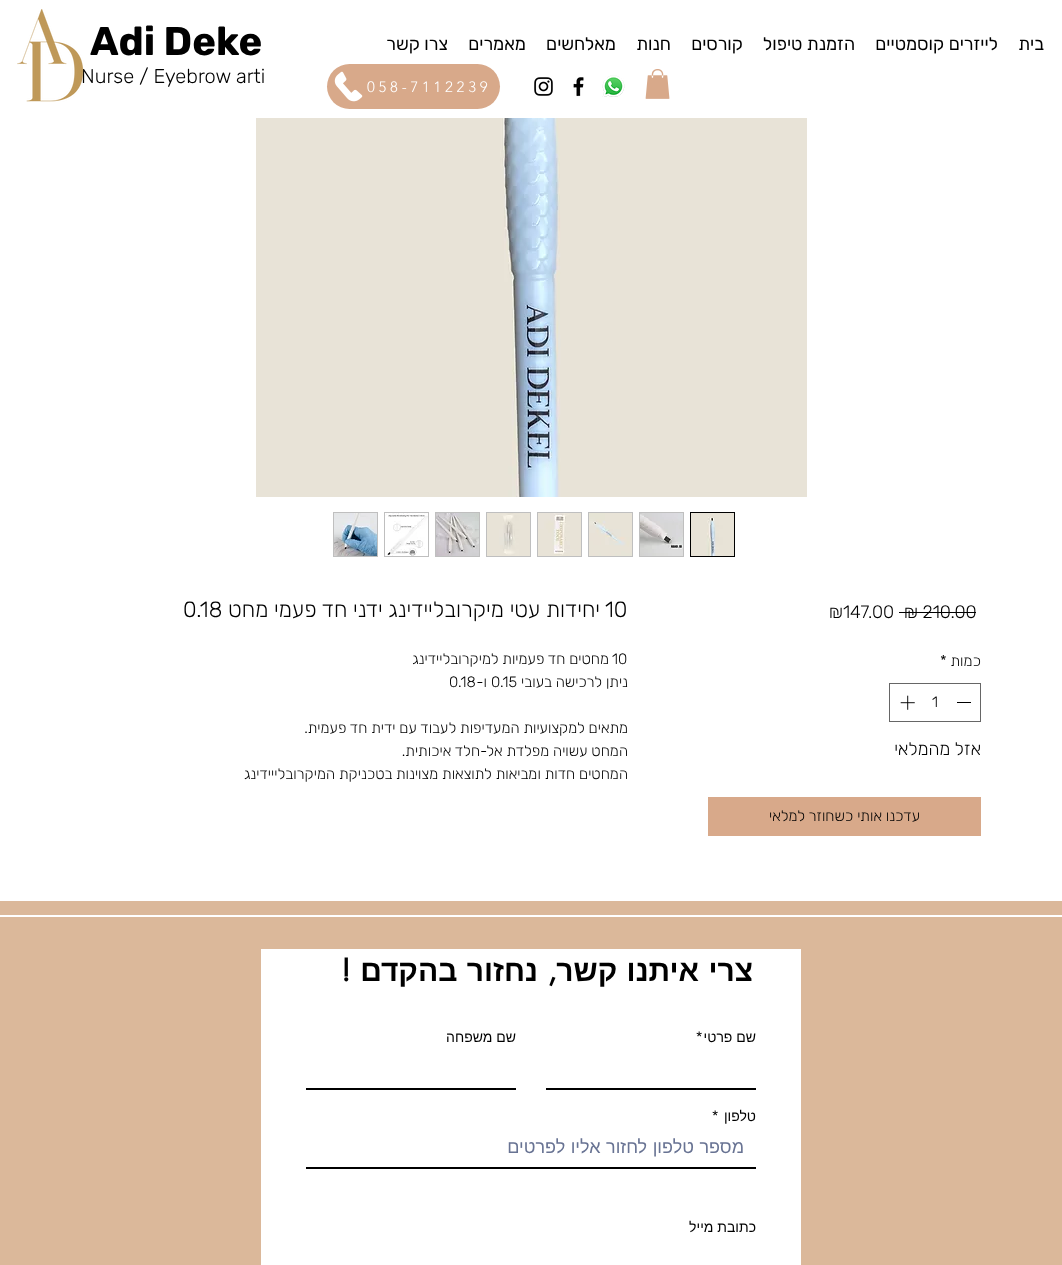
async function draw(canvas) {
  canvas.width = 1062;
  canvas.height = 1265;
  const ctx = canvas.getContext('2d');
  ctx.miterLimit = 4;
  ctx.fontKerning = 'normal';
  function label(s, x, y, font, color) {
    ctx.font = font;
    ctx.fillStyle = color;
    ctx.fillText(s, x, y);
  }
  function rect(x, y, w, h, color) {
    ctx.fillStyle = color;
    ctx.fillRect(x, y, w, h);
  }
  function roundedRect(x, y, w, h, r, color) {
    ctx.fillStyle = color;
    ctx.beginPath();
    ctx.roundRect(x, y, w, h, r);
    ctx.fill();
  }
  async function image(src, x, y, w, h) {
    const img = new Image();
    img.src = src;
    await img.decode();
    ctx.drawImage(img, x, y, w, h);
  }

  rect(0, 0, 1062, 1265, '#fff');
  ctx.direction = 'rtl';
  label('בית', 1044, 50, '18px Rubik', '#000');
  label('לייזרים קוסמטיים', 998, 50, '18px Rubik', '#000');
  label('הזמנת טיפול', 855, 50, '18px Rubik', '#000');
  label('קורסים', 743, 50, '18px Rubik', '#000');
  label('חנות', 671, 50, '18px Rubik', '#000');
  label('מאלחשים', 616, 50, '18px Rubik', '#000');
  label('מאמרים', 526, 50, '18px Rubik', '#000');
  label('צרו קשר', 448, 50, '18px Rubik', '#000');
  await image('assets/img1.png', 645, 69, 25, 30);
  await image('assets/img2.png', 602, 75, 23, 22);
  await image('assets/img3.png', 573, 77, 11, 20);
  await image('assets/img4.png', 534, 77, 19, 19);
  roundedRect(327, 64, 173, 45, 22.5, '#d8a98a');
  ctx.letterSpacing = '3.75px';
  ctx.direction = 'ltr';
  label('058-7112239', 367, 92, '300 15px "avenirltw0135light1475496"', '#fff');
  await image('assets/img5.png', 334, 71, 29, 31);
  ctx.letterSpacing = '0px';
  label('Adi Deke', 90, 55, 'bold 40px Rubik', '#000');
  label('Nurse / Eyebrow arti', 81, 83, '300 20px Rubik', '#000');
  await image('assets/img6.png', 17, 9, 67, 93);
  await image('assets/img7.png', 256, 118, 551, 379);
  ctx.strokeStyle = '#000';
  ctx.strokeRect(690.5, 512.5, 44, 44);
  await image('assets/img8.png', 691, 513, 43, 43);
  rect(639, 512, 45, 45, '#bfbfbf');
  await image('assets/img9.png', 640, 513, 43, 43);
  rect(588, 512, 45, 45, '#bfbfbf');
  await image('assets/img10.png', 589, 513, 43, 43);
  rect(537, 512, 45, 45, '#bfbfbf');
  await image('assets/img11.png', 538, 513, 43, 43);
  rect(486, 512, 45, 45, '#bfbfbf');
  await image('assets/img12.png', 487, 513, 43, 43);
  rect(435, 512, 45, 45, '#bfbfbf');
  await image('assets/img13.png', 436, 513, 43, 43);
  rect(384, 512, 45, 45, '#bfbfbf');
  await image('assets/img14.png', 385, 513, 43, 43);
  rect(333, 512, 45, 45, '#bfbfbf');
  await image('assets/img15.png', 334, 513, 43, 43);
  label('₪ 210.00', 904, 618, '300 18px Rubik', '#000');
  rect(899, 612, 77, 1, '#000');
  label('₪147.00', 829, 618, '300 18px Rubik', '#000');
  ctx.direction = 'rtl';
  label('כמות', 981, 666, '300 15px Rubik', '#000');
  ctx.direction = 'ltr';
  label('*', 940, 666, '300 15px Rubik', '#000');
  ctx.strokeStyle = '#666';
  ctx.strokeRect(889.5, 683.5, 91, 38);
  rect(957, 702, 14, 1, '#000');
  label('1', 932, 707, '300 15px Rubik', '#000');
  await image('assets/img16.png', 900, 695, 15, 15);
  ctx.direction = 'rtl';
  label('אזל מהמלאי', 981, 755, '300 18px Rubik', '#000');
  rect(708, 797, 273, 39, '#d8a98a');
  label('עדכנו אותי כשחוזר למלאי', 920, 821, '300 15px Rubik', '#000');
  ctx.direction = 'ltr';
  label('10', 605, 617, '300 22px Rubik', '#000');
  ctx.direction = 'rtl';
  label('יחידות עטי מיקרובליידינג ידני חד פעמי מחט', 600, 617, '300 22px Rubik', '#000');
  ctx.direction = 'ltr';
  label('0.18', 183, 617, '300 22px Rubik', '#000');
  label('10', 612, 664, '300 15px Rubik', '#000');
  ctx.direction = 'rtl';
  label('מחטים חד פעמיות למיקרובליידינג', 609, 664, '300 15px Rubik', '#000');
  label('ניתן לרכישה בעובי', 628, 687, '300 15px Rubik', '#000');
  ctx.direction = 'ltr';
  label('0.15', 491, 687, '300 15px Rubik', '#000');
  ctx.direction = 'rtl';
  label('ו-', 487, 687, '300 15px Rubik', '#000');
  ctx.direction = 'ltr';
  label('0.18', 449, 687, '300 15px Rubik', '#000');
  ctx.direction = 'rtl';
  label('מתאים למקצועיות המעדיפות לעבוד עם ידית חד פעמית.', 628, 733, '300 15px Rubik', '#000');
  label('המחט עשויה מפלדת אל-חלד איכותית.', 628, 756, '300 15px Rubik', '#000');
  label('המחטים חדות ומביאות לתוצאות מצוינות בטכניקת המיקרובלייידינג', 628, 779, '300 15px Rubik', '#000');
  rect(0, 901, 1062, 364, '#dbb89a');
  rect(0, 915, 1062, 2, '#fff');
  rect(261, 949, 540, 316, '#fff');
  ctx.wordSpacing = '1px';
  label('צרי איתנו קשר', 753, 981, 'bold 30px Liberation Sans', '#000');
  ctx.wordSpacing = '0px';
  label(',', 557, 981, 'bold 30px futura', '#000');
  ctx.wordSpacing = '1px';
  label('נחזור בהקדם', 538, 981, 'bold 30px Liberation Sans', '#000');
  ctx.wordSpacing = '0px';
  label('!', 351, 981, 'bold 30px futura', '#000');
  label('שם פרטי', 756, 1042, '14px Liberation Sans', '#000');
  ctx.direction = 'ltr';
  label('*', 695, 1042, '14px futura', '#000');
  rect(546, 1088, 210, 2, '#000');
  ctx.direction = 'rtl';
  label('שם משפחה', 516, 1042, '14px Liberation Sans', '#000');
  rect(306, 1088, 210, 2, '#000');
  label('טלפון', 756, 1121, '14px Liberation Sans', '#000');
  ctx.direction = 'ltr';
  label('*', 711, 1121, '14px futura', '#000');
  rect(306, 1167, 450, 2, '#000');
  ctx.wordSpacing = '0.5px';
  ctx.direction = 'rtl';
  label('מספר טלפון לחזור אליו לפרטים', 744, 1153, '18px Liberation Sans', '#687393');
  ctx.wordSpacing = '0px';
  label('כתובת מייל', 756, 1232, '14px Liberation Sans', '#000');
}

draw(document.querySelector('canvas'));
